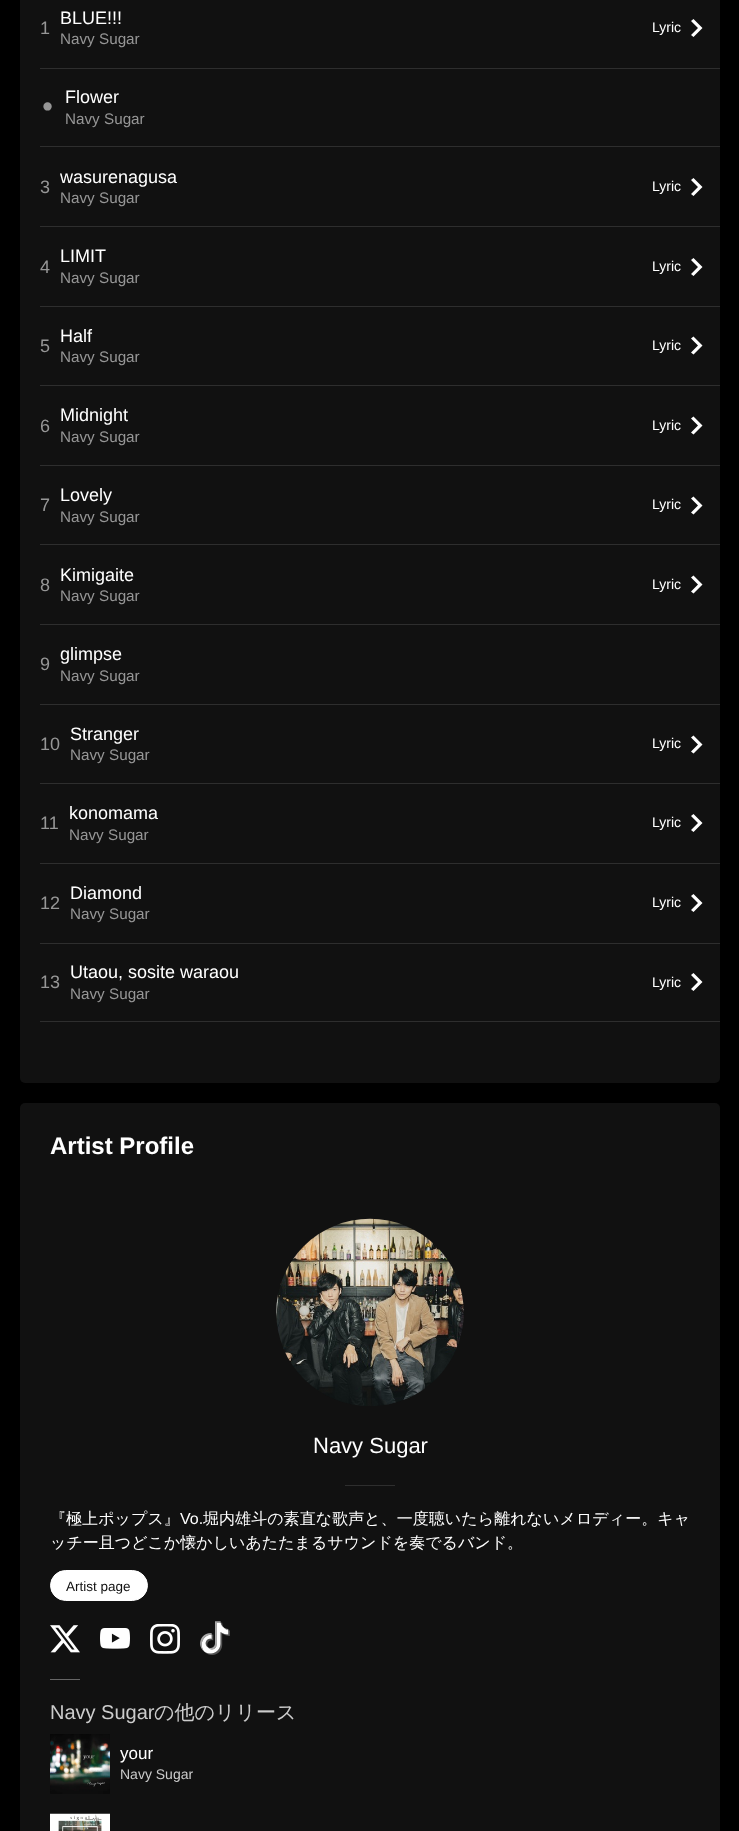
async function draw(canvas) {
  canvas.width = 739;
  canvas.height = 1831;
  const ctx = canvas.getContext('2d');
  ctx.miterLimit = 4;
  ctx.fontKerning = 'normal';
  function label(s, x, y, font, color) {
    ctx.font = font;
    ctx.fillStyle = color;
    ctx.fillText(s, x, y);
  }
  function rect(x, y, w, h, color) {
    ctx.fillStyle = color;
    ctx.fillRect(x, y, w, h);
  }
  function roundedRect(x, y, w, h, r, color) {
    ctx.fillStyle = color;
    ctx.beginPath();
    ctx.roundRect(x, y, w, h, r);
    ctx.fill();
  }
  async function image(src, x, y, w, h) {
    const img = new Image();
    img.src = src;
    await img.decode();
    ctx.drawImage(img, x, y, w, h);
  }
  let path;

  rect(0, 0, 739, 1831, '#000');
  roundedRect(20, -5, 700, 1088, 5, '#111');
  rect(40, 68, 680, 1, '#2e2e2e');
  label('1', 40, 34, '18px Liberation Sans', '#969696');
  label('BLUE!!!', 60, 24, '18px Liberation Sans', '#fff');
  label('Navy Sugar', 60, 44, '15.25px Liberation Sans', '#969696');
  label('Lyric', 652, 32, '14px Liberation Sans', '#fff');
  path = new Path2D('M691 21L698 28L691 35L693.5 37L702.5 28L693.5 19Z');
  ctx.fill(path);
  rect(40, 146, 680, 1, '#2e2e2e');
  label('⚫︎', 40, 113, '18px DejaVu Sans', '#969696');
  label('Flower', 65, 103, '18px Liberation Sans', '#fff');
  label('Navy Sugar', 65, 124, '15.25px Liberation Sans', '#969696');
  rect(40, 226, 680, 1, '#2e2e2e');
  label('3', 40, 193, '18px Liberation Sans', '#969696');
  label('wasurenagusa', 60, 183, '18px Liberation Sans', '#fff');
  label('Navy Sugar', 60, 203, '15.25px Liberation Sans', '#969696');
  label('Lyric', 652, 191, '14px Liberation Sans', '#fff');
  path = new Path2D('M691 180L698 187L691 194L693.5 196L702.5 187L693.5 178Z');
  ctx.fill(path);
  rect(40, 306, 680, 1, '#2e2e2e');
  label('4', 40, 273, '18px Liberation Sans', '#969696');
  label('LIMIT', 60, 262, '18px Liberation Sans', '#fff');
  label('Navy Sugar', 60, 283, '15.25px Liberation Sans', '#969696');
  label('Lyric', 652, 271, '14px Liberation Sans', '#fff');
  path = new Path2D('M691 260L698 267L691 274L693.5 276L702.5 267L693.5 258Z');
  ctx.fill(path);
  rect(40, 385, 680, 1, '#2e2e2e');
  label('5', 40, 352, '18px Liberation Sans', '#969696');
  label('Half', 60, 342, '18px Liberation Sans', '#fff');
  label('Navy Sugar', 60, 362, '15.25px Liberation Sans', '#969696');
  label('Lyric', 652, 350, '14px Liberation Sans', '#fff');
  path = new Path2D('M691 338.5L698 345.5L691 352.5L693.5 354.5L702.5 345.5L693.5 336.5Z');
  ctx.fill(path);
  rect(40, 465, 680, 1, '#2e2e2e');
  label('6', 40, 432, '18px Liberation Sans', '#969696');
  label('Midnight', 60, 421, '18px Liberation Sans', '#fff');
  label('Navy Sugar', 60, 442, '15.25px Liberation Sans', '#969696');
  label('Lyric', 652, 430, '14px Liberation Sans', '#fff');
  path = new Path2D('M691 418.5L698 425.5L691 432.5L693.5 434.5L702.5 425.5L693.5 416.5Z');
  ctx.fill(path);
  rect(40, 544, 680, 1, '#2e2e2e');
  label('7', 40, 511, '18px Liberation Sans', '#969696');
  label('Lovely', 60, 501, '18px Liberation Sans', '#fff');
  label('Navy Sugar', 60, 522, '15.25px Liberation Sans', '#969696');
  label('Lyric', 652, 509, '14px Liberation Sans', '#fff');
  path = new Path2D('M691 498.5L698 505.5L691 512.5L693.5 514.5L702.5 505.5L693.5 496.5Z');
  ctx.fill(path);
  rect(40, 624, 680, 1, '#2e2e2e');
  label('8', 40, 591, '18px Liberation Sans', '#969696');
  label('Kimigaite', 60, 581, '18px Liberation Sans', '#fff');
  label('Navy Sugar', 60, 601, '15.25px Liberation Sans', '#969696');
  label('Lyric', 652, 589, '14px Liberation Sans', '#fff');
  path = new Path2D('M691 577.5L698 584.5L691 591.5L693.5 593.5L702.5 584.5L693.5 575.5Z');
  ctx.fill(path);
  rect(40, 704, 680, 1, '#2e2e2e');
  label('9', 40, 670, '18px Liberation Sans', '#969696');
  label('glimpse', 60, 660, '18px Liberation Sans', '#fff');
  label('Navy Sugar', 60, 681, '15.25px Liberation Sans', '#969696');
  rect(40, 783, 680, 1, '#2e2e2e');
  label('10', 40, 750, '18px Liberation Sans', '#969696');
  label('Stranger', 70, 740, '18px Liberation Sans', '#fff');
  label('Navy Sugar', 70, 760, '15.25px Liberation Sans', '#969696');
  label('Lyric', 652, 748, '14px Liberation Sans', '#fff');
  path = new Path2D('M691 737.5L698 744.5L691 751.5L693.5 753.5L702.5 744.5L693.5 735.5Z');
  ctx.fill(path);
  rect(40, 863, 680, 1, '#2e2e2e');
  label('11', 40, 829, '18px Liberation Sans', '#969696');
  label('konomama', 69, 819, '18px Liberation Sans', '#fff');
  label('Navy Sugar', 69, 840, '15.25px Liberation Sans', '#969696');
  label('Lyric', 652, 827, '14px Liberation Sans', '#fff');
  path = new Path2D('M691 816L698 823L691 830L693.5 832L702.5 823L693.5 814Z');
  ctx.fill(path);
  rect(40, 943, 680, 1, '#2e2e2e');
  label('12', 40, 909, '18px Liberation Sans', '#969696');
  label('Diamond', 70, 899, '18px Liberation Sans', '#fff');
  label('Navy Sugar', 70, 919, '15.25px Liberation Sans', '#969696');
  label('Lyric', 652, 907, '14px Liberation Sans', '#fff');
  path = new Path2D('M691 896L698 903L691 910L693.5 912L702.5 903L693.5 894Z');
  ctx.fill(path);
  rect(40, 1021, 680, 1, '#2e2e2e');
  label('13', 40, 988, '18px Liberation Sans', '#969696');
  label('Utaou, sosite waraou', 70, 978, '18px Liberation Sans', '#fff');
  label('Navy Sugar', 70, 999, '15.25px Liberation Sans', '#969696');
  label('Lyric', 652, 987, '14px Liberation Sans', '#fff');
  path = new Path2D('M691 975L698 982L691 989L693.5 991L702.5 982L693.5 973Z');
  ctx.fill(path);
  roundedRect(20, 1103, 700, 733, 5, '#111');
  label('Artist Profile', 50, 1154, 'bold 24px Liberation Sans', '#fff');
  await image('assets/img1.png', 276, 1218, 188, 188);
  label('Navy Sugar', 313, 1453, '22px Liberation Sans', '#fff');
  rect(345, 1485, 50, 1, '#2e2e2e');
  ctx.letterSpacing = '0.05px';
  label('『極上ポップス』', 50, 1524, '500 16px WenQuanYi Zen Hei', '#fff');
  label('Vo.', 180, 1524, '16px Liberation Sans', '#fff');
  label('堀内雄斗の素直な歌声と、一度聴いたら離れないメロディー。キャ', 203, 1524, '500 16px WenQuanYi Zen Hei', '#fff');
  ctx.letterSpacing = '0px';
  label('ッチー且つどこか懐かしいあたたまるサウンドを奏でるバンド。', 50, 1548, '500 16px WenQuanYi Zen Hei', '#fff');
  ctx.beginPath();
  ctx.roundRect(50.5, 1570.5, 97, 30, 15);
  ctx.fill();
  ctx.strokeStyle = '#fff';
  ctx.stroke();
  label('Artist page', 66, 1591, '13.5px Liberation Sans', '#111');
  await image('assets/img2.png', 50, 1625, 30, 28);
  await image('assets/img3.png', 100, 1628, 30, 21);
  await image('assets/img4.png', 150, 1624, 30, 30);
  await image('assets/img5.png', 200, 1621, 30, 34);
  rect(50, 1679, 30, 1, '#666');
  label('Navy Sugar', 50, 1719, '20px Liberation Sans', '#ccc');
  label('の他のリリース', 154, 1719, '500 20px WenQuanYi Zen Hei', '#ccc');
  await image('assets/img6.png', 50, 1734, 60, 60);
  label('your', 120, 1759, '17px Liberation Sans', '#fff');
  label('Navy Sugar', 120, 1779, '14px Liberation Sans', '#ccc');
  await image('assets/img7.png', 50, 1813, 60, 18);
}

draw(document.querySelector('canvas'));
